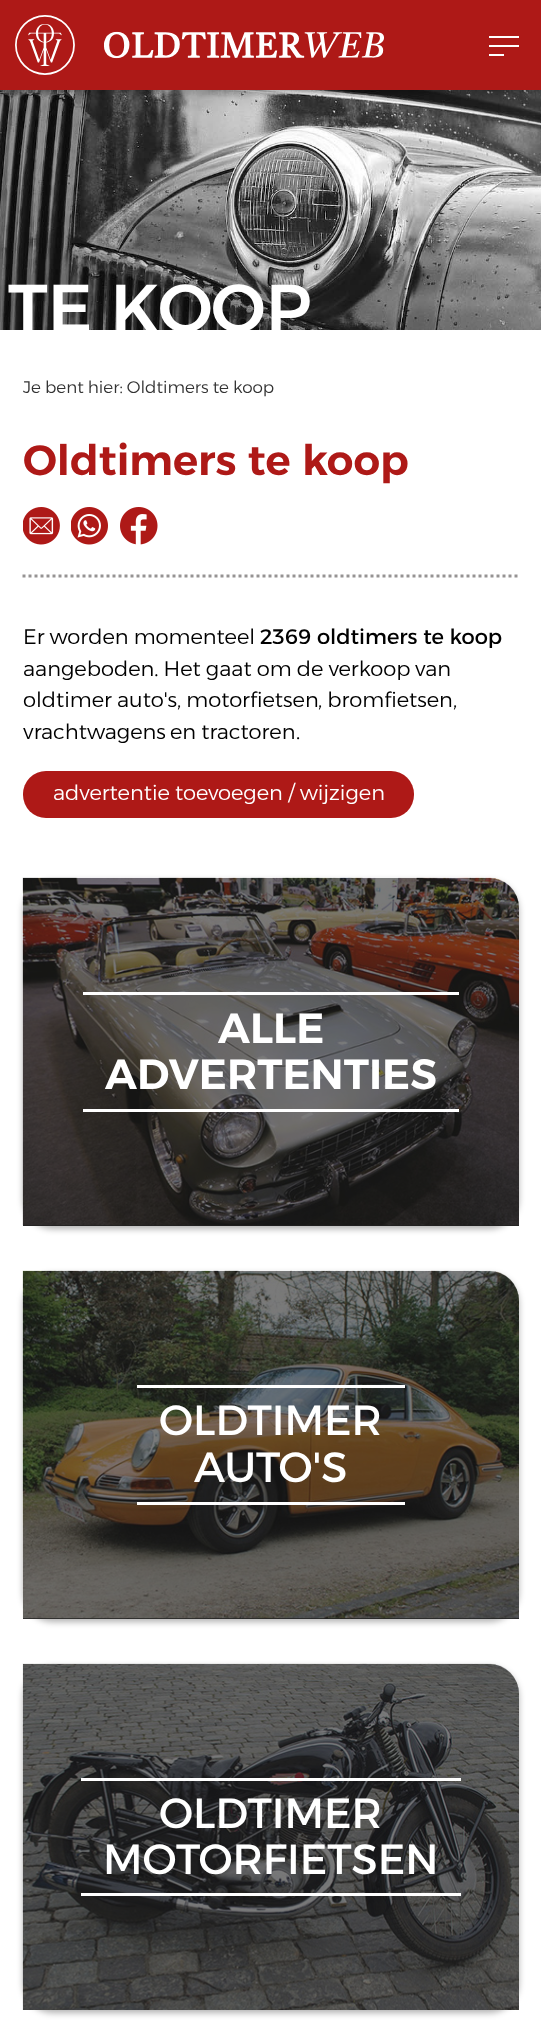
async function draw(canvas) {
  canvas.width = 541;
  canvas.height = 2043;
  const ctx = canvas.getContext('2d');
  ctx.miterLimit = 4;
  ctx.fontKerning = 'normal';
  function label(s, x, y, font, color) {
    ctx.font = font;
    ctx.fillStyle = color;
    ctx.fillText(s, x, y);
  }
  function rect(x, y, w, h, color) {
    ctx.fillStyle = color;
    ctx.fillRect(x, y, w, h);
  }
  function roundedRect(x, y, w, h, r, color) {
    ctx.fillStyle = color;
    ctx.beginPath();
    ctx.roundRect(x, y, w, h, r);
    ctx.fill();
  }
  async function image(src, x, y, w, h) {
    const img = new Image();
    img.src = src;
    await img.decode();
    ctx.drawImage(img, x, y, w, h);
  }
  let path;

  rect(0, 0, 541, 2043, '#fff');
  await image('assets/img2.png', 0, 90, 541, 240);
  ctx.fillStyle = '#0000004d';
  ctx.filter = 'blur(3px)';
  ctx.beginPath();
  ctx.rect(0, 3, 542, 90);
  ctx.fill();
  ctx.filter = 'none';
  rect(0, 0, 541, 90, '#ae1917');
  await image('assets/img1.png', 15, 15, 369, 60);
  rect(489, 36, 30, 2, '#fff');
  rect(489, 45, 30, 2, '#fff');
  rect(489, 54, 15, 2, '#fff');
  label('TE KOOP', 8, 332, '500 67.5px Alexandria', '#fff');
  label('Je bent hier: Oldtimers te koop', 23, 393, '300 16.75px Alexandria', '#333');
  path = new Path2D('M22.5 576H519');
  ctx.strokeStyle = '#969393';
  ctx.lineWidth = 3;
  ctx.setLineDash([3, 3]);
  ctx.stroke(path);
  label('Oldtimers te koop', 23, 475, '600 42px Alexandria', '#ae1917');
  await image('assets/img3.png', 23, 507, 37, 38);
  await image('assets/img4.png', 71, 507, 37, 38);
  await image('assets/img5.png', 120, 507, 38, 38);
  label('Er worden momenteel', 23, 644, '300 21px Alexandria', '#000');
  label('2369 oldtimers te koop', 260, 644, '21px Alexandria', '#000');
  label('aangeboden. Het gaat om de verkoop', 23, 676, '300 21px Alexandria', '#000');
  label('van', 415, 676, '300 21px Alexandria', '#000');
  label('oldtimer auto\'s', 23, 707, '300 21px Alexandria', '#000');
  label(', motorfietsen', 177, 707, '300 21px Alexandria', '#000');
  label(', bromfietsen', 318, 707, '300 21px Alexandria', '#000');
  label(',', 453, 707, '300 21px Alexandria', '#000');
  label('vrachtwagens', 23, 739, '300 21px Alexandria', '#000');
  label('en tractoren', 170, 739, '300 21px Alexandria', '#000');
  label('.', 296, 739, '300 21px Alexandria', '#000');
  roundedRect(23, 771, 391, 47, 23, '#ae1917');
  label('advertentie toevoegen / wijzigen', 53, 800, '300 21px Alexandria', '#fff');
  ctx.fillStyle = '#0000004d';
  ctx.filter = 'blur(3px)';
  ctx.beginPath();
  ctx.roundRect(23, 881, 496, 348, 30);
  ctx.fill();
  ctx.filter = 'none';
  ctx.fillStyle = '#222';
  ctx.beginPath();
  ctx.roundRect(23, 878, 496, 348, [0, 30, 0, 0]);
  ctx.fill();
  await image('assets/img6.png', 22, 877, 497, 349);
  rect(83, 992, 376, 3, '#fff');
  rect(83, 1109, 376, 3, '#fff');
  label('ALLE', 218, 1043, '600 42px Alexandria', '#fff');
  label('ADVERTENTIES', 105, 1089, '600 42px Alexandria', '#fff');
  ctx.fillStyle = '#0000004d';
  ctx.filter = 'blur(3px)';
  ctx.beginPath();
  ctx.roundRect(23, 1274, 496, 348, 30);
  ctx.fill();
  ctx.filter = 'none';
  ctx.fillStyle = '#222';
  ctx.beginPath();
  ctx.roundRect(23, 1271, 496, 348, [0, 30, 0, 0]);
  ctx.fill();
  await image('assets/img7.png', 22, 1270, 497, 349);
  rect(137, 1385, 268, 3, '#fff');
  rect(137, 1502, 268, 3, '#fff');
  label('OLDTIMER', 159, 1435, '42px Alexandria', '#fff');
  label('AUTO\'S', 194, 1482, '42px Alexandria', '#fff');
  ctx.fillStyle = '#0000004d';
  ctx.filter = 'blur(3px)';
  ctx.beginPath();
  ctx.roundRect(23, 1667, 496, 346, 30);
  ctx.fill();
  ctx.filter = 'none';
  ctx.fillStyle = '#222';
  ctx.beginPath();
  ctx.roundRect(23, 1664, 496, 346, [0, 30, 0, 0]);
  ctx.fill();
  await image('assets/img8.png', 22, 1663, 497, 347);
  rect(81, 1778, 380, 3, '#fff');
  rect(81, 1893, 380, 3, '#fff');
  label('OLDTIMER', 159, 1828, '42px Alexandria', '#fff');
  label('MOTORFIETSEN', 103, 1874, '42px Alexandria', '#fff');
}

draw(document.querySelector('canvas'));
